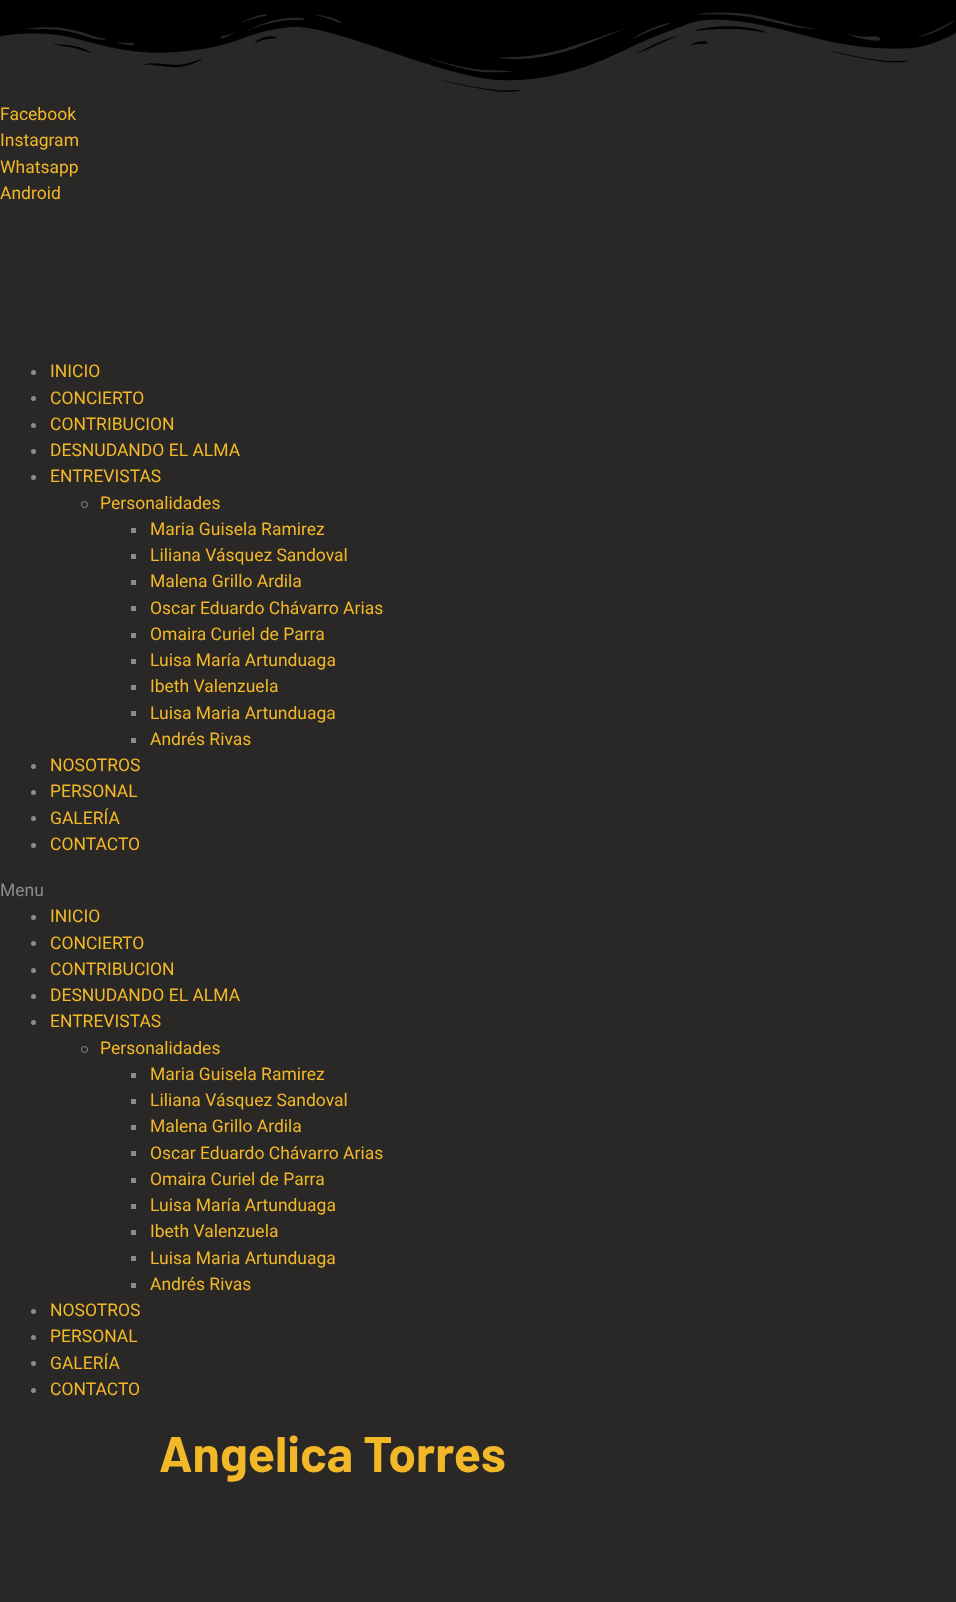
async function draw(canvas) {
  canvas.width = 956;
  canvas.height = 1602;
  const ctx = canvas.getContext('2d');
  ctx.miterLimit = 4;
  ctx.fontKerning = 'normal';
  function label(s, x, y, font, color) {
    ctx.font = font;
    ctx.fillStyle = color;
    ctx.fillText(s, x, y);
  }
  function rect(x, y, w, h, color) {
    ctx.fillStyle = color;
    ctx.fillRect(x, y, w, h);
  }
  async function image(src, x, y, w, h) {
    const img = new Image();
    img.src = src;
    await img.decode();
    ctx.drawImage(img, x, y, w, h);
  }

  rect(0, 0, 956, 1602, '#2a2727');
  await image('assets/img1.png', 0, 0, 956, 92);
  label('Facebook', 0, 120, '17.5px Roboto', '#f2b827');
  label('Instagram', 0, 146, '17.5px Roboto', '#f2b827');
  label('Whatsapp', 0, 173, '17.5px Roboto', '#f2b827');
  label('Android', 0, 199, '17.5px Roboto', '#f2b827');
  ctx.fillStyle = '#8c8c8c';
  ctx.beginPath();
  ctx.arc(33.5, 372.5, 2.5, 0, 2 * Math.PI);
  ctx.fill();
  label('INICIO', 50, 377, '17.5px Roboto', '#f2b827');
  ctx.fillStyle = '#8c8c8c';
  ctx.beginPath();
  ctx.arc(33.5, 398.5, 2.5, 0, 2 * Math.PI);
  ctx.fill();
  label('CONCIERTO', 50, 404, '17.5px Roboto', '#f2b827');
  ctx.fillStyle = '#8c8c8c';
  ctx.beginPath();
  ctx.arc(33.5, 425.5, 2.5, 0, 2 * Math.PI);
  ctx.fill();
  label('CONTRIBUCION', 50, 430, '17.5px Roboto', '#f2b827');
  ctx.fillStyle = '#8c8c8c';
  ctx.beginPath();
  ctx.arc(33.5, 451.5, 2.5, 0, 2 * Math.PI);
  ctx.fill();
  label('DESNUDANDO EL ALMA', 50, 456, '17.5px Roboto', '#f2b827');
  ctx.fillStyle = '#8c8c8c';
  ctx.beginPath();
  ctx.arc(33.5, 477.5, 2.5, 0, 2 * Math.PI);
  ctx.fill();
  label('ENTREVISTAS', 50, 482, '17.5px Roboto', '#f2b827');
  ctx.beginPath();
  ctx.arc(84.5, 504.5, 3, 0, 2 * Math.PI);
  ctx.strokeStyle = '#8c8c8c';
  ctx.stroke();
  label('Personalidades', 100, 509, '17.5px Roboto', '#f2b827');
  rect(131, 528, 5, 5, '#8c8c8c');
  label('Maria Guisela Ramirez', 150, 535, '17.5px Roboto', '#f2b827');
  rect(131, 554, 5, 5, '#8c8c8c');
  label('Liliana Vásquez Sandoval', 150, 561, '17.5px Roboto', '#f2b827');
  rect(131, 580, 5, 5, '#8c8c8c');
  label('Malena Grillo Ardila', 150, 587, '17.5px Roboto', '#f2b827');
  rect(131, 606, 5, 5, '#8c8c8c');
  label('Oscar Eduardo Chávarro Arias', 150, 614, '17.5px Roboto', '#f2b827');
  rect(131, 633, 5, 5, '#8c8c8c');
  label('Omaira Curiel de Parra', 150, 640, '17.5px Roboto', '#f2b827');
  rect(131, 659, 5, 5, '#8c8c8c');
  label('Luisa María Artunduaga', 150, 666, '17.5px Roboto', '#f2b827');
  rect(131, 685, 5, 5, '#8c8c8c');
  label('Ibeth Valenzuela', 150, 692, '17.5px Roboto', '#f2b827');
  rect(131, 711, 5, 5, '#8c8c8c');
  label('Luisa Maria Artunduaga', 150, 719, '17.5px Roboto', '#f2b827');
  rect(131, 738, 5, 5, '#8c8c8c');
  label('Andrés Rivas', 150, 745, '17.5px Roboto', '#f2b827');
  ctx.fillStyle = '#8c8c8c';
  ctx.beginPath();
  ctx.arc(33.5, 766.5, 2.5, 0, 2 * Math.PI);
  ctx.fill();
  label('NOSOTROS', 50, 771, '17.5px Roboto', '#f2b827');
  ctx.fillStyle = '#8c8c8c';
  ctx.beginPath();
  ctx.arc(33.5, 792.5, 2.5, 0, 2 * Math.PI);
  ctx.fill();
  label('PERSONAL', 50, 797, '17.5px Roboto', '#f2b827');
  ctx.fillStyle = '#8c8c8c';
  ctx.beginPath();
  ctx.arc(33.5, 818.5, 2.5, 0, 2 * Math.PI);
  ctx.fill();
  label('GALERÍA', 50, 824, '17.5px Roboto', '#f2b827');
  ctx.fillStyle = '#8c8c8c';
  ctx.beginPath();
  ctx.arc(33.5, 845.5, 2.5, 0, 2 * Math.PI);
  ctx.fill();
  label('CONTACTO', 50, 850, '17.5px Roboto', '#f2b827');
  label('Menu', 0, 896, '17.5px Roboto', '#8c8c8c');
  ctx.beginPath();
  ctx.arc(33.5, 917.5, 2.5, 0, 2 * Math.PI);
  ctx.fill();
  label('INICIO', 50, 922, '17.5px Roboto', '#f2b827');
  ctx.fillStyle = '#8c8c8c';
  ctx.beginPath();
  ctx.arc(33.5, 943.5, 2.5, 0, 2 * Math.PI);
  ctx.fill();
  label('CONCIERTO', 50, 949, '17.5px Roboto', '#f2b827');
  ctx.fillStyle = '#8c8c8c';
  ctx.beginPath();
  ctx.arc(33.5, 970.5, 2.5, 0, 2 * Math.PI);
  ctx.fill();
  label('CONTRIBUCION', 50, 975, '17.5px Roboto', '#f2b827');
  ctx.fillStyle = '#8c8c8c';
  ctx.beginPath();
  ctx.arc(33.5, 996.5, 2.5, 0, 2 * Math.PI);
  ctx.fill();
  label('DESNUDANDO EL ALMA', 50, 1001, '17.5px Roboto', '#f2b827');
  ctx.fillStyle = '#8c8c8c';
  ctx.beginPath();
  ctx.arc(33.5, 1022.5, 2.5, 0, 2 * Math.PI);
  ctx.fill();
  label('ENTREVISTAS', 50, 1027, '17.5px Roboto', '#f2b827');
  ctx.beginPath();
  ctx.arc(84.5, 1049.5, 3, 0, 2 * Math.PI);
  ctx.stroke();
  label('Personalidades', 100, 1054, '17.5px Roboto', '#f2b827');
  rect(131, 1073, 5, 5, '#8c8c8c');
  label('Maria Guisela Ramirez', 150, 1080, '17.5px Roboto', '#f2b827');
  rect(131, 1099, 5, 5, '#8c8c8c');
  label('Liliana Vásquez Sandoval', 150, 1106, '17.5px Roboto', '#f2b827');
  rect(131, 1125, 5, 5, '#8c8c8c');
  label('Malena Grillo Ardila', 150, 1132, '17.5px Roboto', '#f2b827');
  rect(131, 1151, 5, 5, '#8c8c8c');
  label('Oscar Eduardo Chávarro Arias', 150, 1159, '17.5px Roboto', '#f2b827');
  rect(131, 1178, 5, 5, '#8c8c8c');
  label('Omaira Curiel de Parra', 150, 1185, '17.5px Roboto', '#f2b827');
  rect(131, 1204, 5, 5, '#8c8c8c');
  label('Luisa María Artunduaga', 150, 1211, '17.5px Roboto', '#f2b827');
  rect(131, 1230, 5, 5, '#8c8c8c');
  label('Ibeth Valenzuela', 150, 1237, '17.5px Roboto', '#f2b827');
  rect(131, 1256, 5, 5, '#8c8c8c');
  label('Luisa Maria Artunduaga', 150, 1264, '17.5px Roboto', '#f2b827');
  rect(131, 1283, 5, 5, '#8c8c8c');
  label('Andrés Rivas', 150, 1290, '17.5px Roboto', '#f2b827');
  ctx.fillStyle = '#8c8c8c';
  ctx.beginPath();
  ctx.arc(33.5, 1311.5, 2.5, 0, 2 * Math.PI);
  ctx.fill();
  label('NOSOTROS', 50, 1316, '17.5px Roboto', '#f2b827');
  ctx.fillStyle = '#8c8c8c';
  ctx.beginPath();
  ctx.arc(33.5, 1337.5, 2.5, 0, 2 * Math.PI);
  ctx.fill();
  label('PERSONAL', 50, 1342, '17.5px Roboto', '#f2b827');
  ctx.fillStyle = '#8c8c8c';
  ctx.beginPath();
  ctx.arc(33.5, 1363.5, 2.5, 0, 2 * Math.PI);
  ctx.fill();
  label('GALERÍA', 50, 1369, '17.5px Roboto', '#f2b827');
  ctx.fillStyle = '#8c8c8c';
  ctx.beginPath();
  ctx.arc(33.5, 1390.5, 2.5, 0, 2 * Math.PI);
  ctx.fill();
  label('CONTACTO', 50, 1395, '17.5px Roboto', '#f2b827');
  label('Angelica Torres', 159, 1472, 'bold 50px Barlow', '#f2b827');
}

draw(document.querySelector('canvas'));
